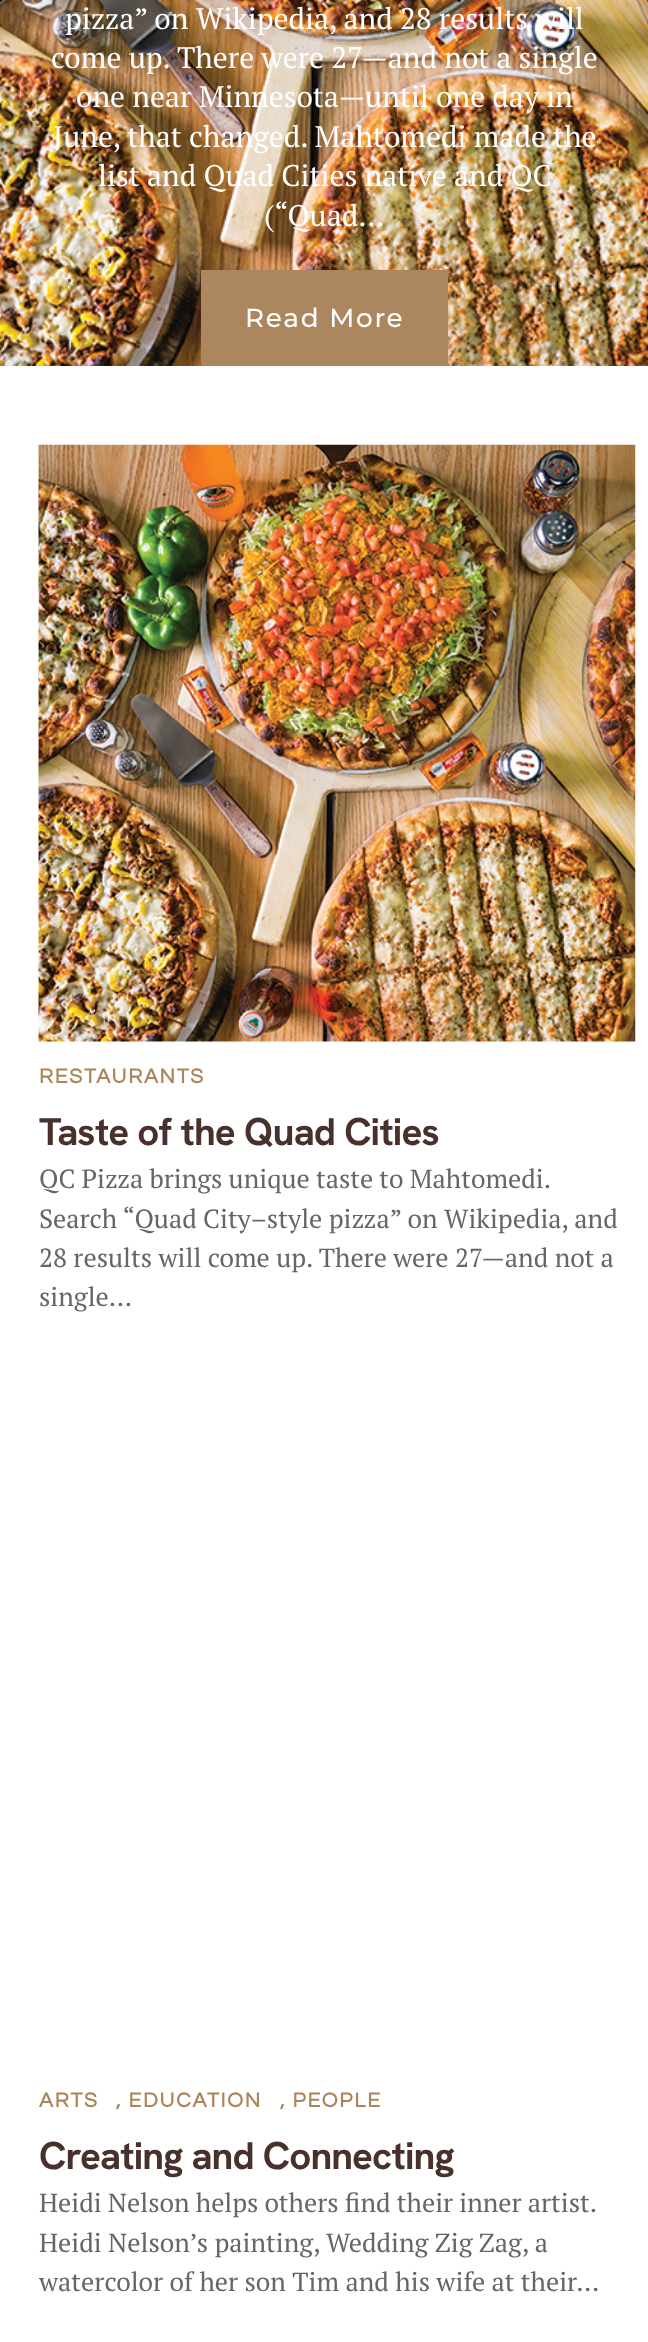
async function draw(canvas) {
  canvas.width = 648;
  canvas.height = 2342;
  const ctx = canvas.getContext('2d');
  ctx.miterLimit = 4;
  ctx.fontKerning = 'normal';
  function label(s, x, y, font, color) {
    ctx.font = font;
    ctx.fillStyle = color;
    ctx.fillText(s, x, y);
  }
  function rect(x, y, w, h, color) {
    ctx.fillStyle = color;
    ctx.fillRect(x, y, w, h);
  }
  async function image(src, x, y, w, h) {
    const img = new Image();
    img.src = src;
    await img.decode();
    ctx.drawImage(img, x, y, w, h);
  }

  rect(0, 0, 648, 2342, '#fff');
  await image('assets/img1.png', 0, 0, 648, 366);
  label('pizza” on Wikipedia, and 28 results will', 65, 29, '29.75px PT Serif', '#fff');
  label('come up. There were 27—and not a single', 51, 68, '29.75px PT Serif', '#fff');
  label('one near Minnesota—until one day in', 76, 107, '29.75px PT Serif', '#fff');
  label('June, that changed. Mahtomedi made the', 53, 147, '29.75px PT Serif', '#fff');
  label('list and Quad Cities native and QC', 98, 186, '29.75px PT Serif', '#fff');
  label('(“Quad...', 264, 226, '29.75px PT Serif', '#fff');
  rect(201, 270, 247, 96, '#ab865e');
  ctx.letterSpacing = '1.75px';
  label('Read More', 245, 327, '500 26.25px Montserrat', '#fff');
  await image('assets/img2.png', 38, 444, 598, 598);
  label('RESTAURANTS', 39, 1083, 'bold 21px Questrial', '#ac865b');
  ctx.letterSpacing = '-0.9px';
  label('Taste of the Quad Cities', 39, 1145, 'bold 38.5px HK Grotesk', '#48302c');
  ctx.letterSpacing = '0px';
  ctx.wordSpacing = '-0.25px';
  label('QC Pizza brings unique taste to Mahtomedi.', 39, 1188, '26.25px PT Serif', '#666');
  ctx.wordSpacing = '0px';
  label('Search “Quad City–style pizza” on Wikipedia, and', 39, 1228, '26.25px PT Serif', '#666');
  label('28 results will come up. There were 27—and not a', 39, 1267, '26.25px PT Serif', '#666');
  label('single...', 39, 1306, '26.25px PT Serif', '#666');
  ctx.letterSpacing = '1.75px';
  label('ARTS', 39, 2107, 'bold 21px Questrial', '#ac865b');
  label(', EDUCATION', 116, 2107, 'bold 21px Questrial', '#ac865b');
  label(', PEOPLE', 280, 2107, 'bold 21px Questrial', '#ac865b');
  ctx.letterSpacing = '-0.9px';
  label('Creating and Connecting', 39, 2169, 'bold 38.5px HK Grotesk', '#48302c');
  ctx.letterSpacing = '0px';
  ctx.wordSpacing = '-0.25px';
  label('Heidi Nelson helps others find their inner artist.', 39, 2212, '26.25px PT Serif', '#666');
  ctx.wordSpacing = '0px';
  label('Heidi Nelson’s painting, Wedding Zig Zag, a', 39, 2252, '26.25px PT Serif', '#666');
  label('watercolor of her son Tim and his wife at their...', 39, 2291, '26.25px PT Serif', '#666');
}

draw(document.querySelector('canvas'));
